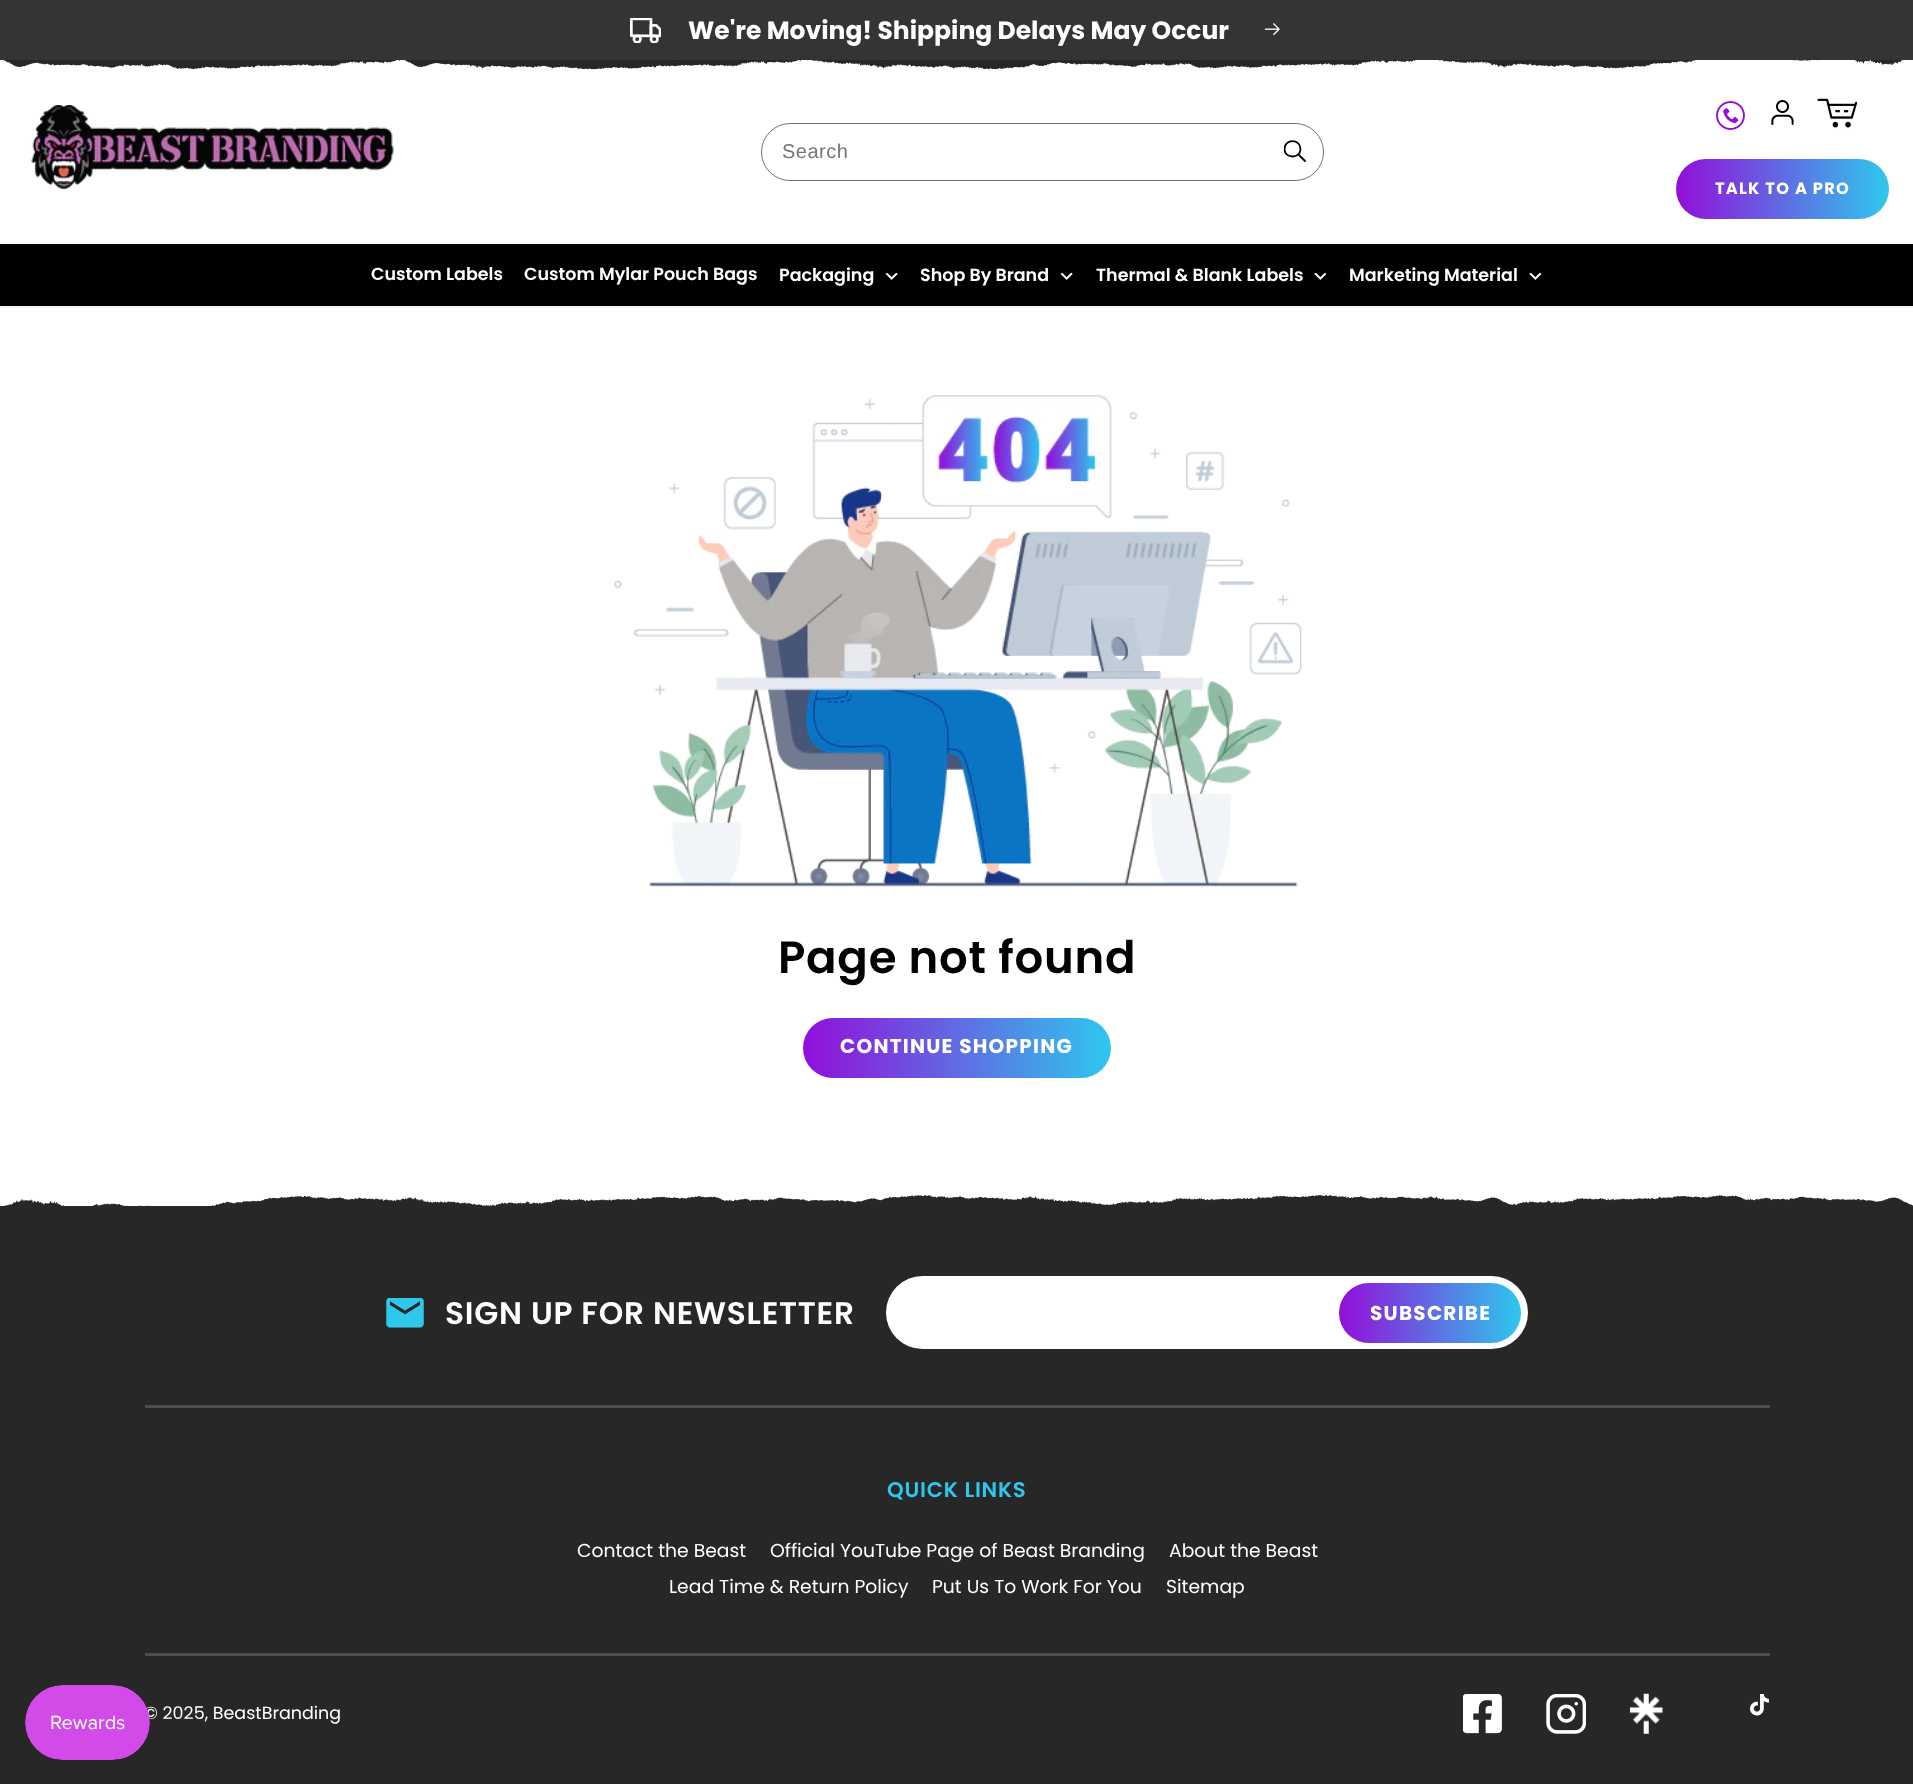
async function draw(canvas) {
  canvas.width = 1913;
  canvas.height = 1784;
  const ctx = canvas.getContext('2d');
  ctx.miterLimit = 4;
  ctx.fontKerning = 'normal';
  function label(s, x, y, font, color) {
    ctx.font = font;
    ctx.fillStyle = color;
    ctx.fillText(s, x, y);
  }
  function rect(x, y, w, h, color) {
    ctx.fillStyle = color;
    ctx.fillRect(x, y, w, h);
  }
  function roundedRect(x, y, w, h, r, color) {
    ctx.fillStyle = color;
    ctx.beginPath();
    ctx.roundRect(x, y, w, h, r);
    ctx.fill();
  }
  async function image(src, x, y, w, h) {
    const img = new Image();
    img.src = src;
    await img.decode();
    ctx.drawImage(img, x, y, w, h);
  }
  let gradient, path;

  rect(0, 0, 1913, 1784, '#fff');
  rect(0, 0, 1913, 60, '#343434');
  await image('assets/img1.png', 630, 18, 31, 25);
  label('We\'re Moving! Shipping Delays May Occur', 688, 39, 'bold 25px Poppins', '#fff');
  await image('assets/img2.png', 1265, 23, 15, 12);
  await image('assets/img3.png', 3, 60, 1902, 10);
  rect(0, 306, 1913, 1, '#ebebeb');
  await image('assets/img4.png', 31, 105, 363, 84);
  ctx.save();
  ctx.beginPath();
  ctx.rect(1284, 140, 22, 23);
  ctx.clip();
  path = new Path2D('M1300.5 149C1300.5 159 1284.5 159 1284.5 149C1284.5 138.5 1300.5 138.5 1300.5 149Z');
  ctx.strokeStyle = '#000';
  ctx.lineWidth = 1.8;
  ctx.lineCap = 'round';
  ctx.lineJoin = 'round';
  ctx.stroke(path);
  ctx.restore();
  path = new Path2D('M1305 161L1299 155');
  ctx.strokeStyle = '#000';
  ctx.lineWidth = 1.8;
  ctx.lineCap = 'round';
  ctx.lineJoin = 'round';
  ctx.stroke(path);
  ctx.beginPath();
  ctx.roundRect(761.5, 123.5, 562, 57, 28.5);
  ctx.strokeStyle = '#737373';
  ctx.lineWidth = 1;
  ctx.lineJoin = 'miter';
  ctx.stroke();
  ctx.letterSpacing = '0.5px';
  label('Search', 782, 158, '20px Liberation Sans', '#757575');
  await image('assets/img5.png', 1716, 101, 29, 29);
  await image('assets/img6.png', 1771, 100, 23, 25);
  await image('assets/img7.png', 1816, 98, 42, 31);
  gradient = ctx.createLinearGradient(1676, 189, 1889, 189);
  gradient.addColorStop(0, '#930ed9');
  gradient.addColorStop(1, '#2ec8ed');
  ctx.fillStyle = gradient;
  ctx.beginPath();
  ctx.roundRect(1676, 159, 213, 60, 30);
  ctx.fill();
  ctx.letterSpacing = '1.25px';
  label('TALK TO A PRO', 1715, 194, 'bold 16.25px Poppins', '#fff');
  rect(0, 244, 1913, 62, '#000');
  ctx.letterSpacing = '0px';
  label('Custom Labels', 371, 280, '600 17.5px Poppins', '#fff');
  label('Custom Mylar Pouch Bags', 524, 280, '600 17.5px Poppins', '#fff');
  label('Packaging', 779, 281, '600 17.5px Poppins', '#fff');
  await image('assets/img8.png', 885, 273, 13, 7);
  label('Shop By Brand', 920, 281, '600 17.5px Poppins', '#fff');
  await image('assets/img8.png', 1060, 273, 13, 7);
  label('Thermal & Blank Labels', 1096, 281, '600 17.5px Poppins', '#fff');
  await image('assets/img9.png', 1314, 273, 12, 7);
  label('Marketing Material', 1349, 281, '600 17.5px Poppins', '#fff');
  await image('assets/img9.png', 1529, 273, 12, 7);
  await image('assets/img10.png', 613, 395, 689, 492);
  ctx.letterSpacing = '0.75px';
  label('Page not found', 778, 973, '600 45px Poppins', '#000');
  gradient = ctx.createLinearGradient(803, 1048, 1111, 1048);
  gradient.addColorStop(0, '#930ed9');
  gradient.addColorStop(1, '#2ec8ed');
  ctx.fillStyle = gradient;
  ctx.beginPath();
  ctx.roundRect(803, 1018, 308, 60, 30);
  ctx.fill();
  ctx.letterSpacing = '1.25px';
  label('CONTINUE SHOPPING', 840, 1053, 'bold 20px Poppins', '#fff');
  rect(0, 1206, 1913, 578, '#272727');
  ctx.letterSpacing = '0px';
  label('© 2025, BeastBranding', 144, 1719, '17.5px Poppins', '#fff');
  await image('assets/img11.png', 25, 1685, 125, 75);
  await image('assets/img12.png', 4, 1195, 1909, 11);
  rect(145, 1405, 1625, 3, '#4d4d4d');
  await image('assets/img13.png', 386, 1298, 38, 30);
  ctx.letterSpacing = '0.75px';
  label('SIGN UP FOR NEWSLETTER', 445, 1324, '600 31.25px Poppins', '#fff');
  roundedRect(886, 1276, 642, 73, 36.5, '#fff');
  gradient = ctx.createLinearGradient(1339, 1313, 1521, 1313);
  gradient.addColorStop(0, '#930ed9');
  gradient.addColorStop(1, '#2ec8ed');
  ctx.fillStyle = gradient;
  ctx.beginPath();
  ctx.roundRect(1339, 1283, 182, 60, 30);
  ctx.fill();
  ctx.letterSpacing = '1.25px';
  label('SUBSCRIBE', 1370, 1320, 'bold 20px Poppins', '#fff');
  rect(145, 1653, 1625, 3, '#4d4d4d');
  ctx.letterSpacing = '0.75px';
  label('QUICK LINKS', 887, 1497, '600 21.25px Poppins', '#2ec8ed');
  ctx.letterSpacing = '0px';
  label('Contact the Beast', 577, 1557, '18.75px Poppins', '#fff');
  label('Official YouTube Page of Beast Branding', 770, 1557, '18.75px Poppins', '#fff');
  label('About the Beast', 1169, 1557, '18.75px Poppins', '#fff');
  label('Lead Time & Return Policy', 669, 1593, '18.75px Poppins', '#fff');
  label('Put Us To Work For You', 932, 1593, '18.75px Poppins', '#fff');
  label('Sitemap', 1166, 1593, '18.75px Poppins', '#fff');
  await image('assets/img14.png', 1463, 1694, 39, 40);
  await image('assets/img15.png', 1546, 1694, 40, 40);
  await image('assets/img16.png', 1630, 1693, 33, 41);
  await image('assets/img17.png', 1750, 1694, 19, 22);
}

draw(document.querySelector('canvas'));
